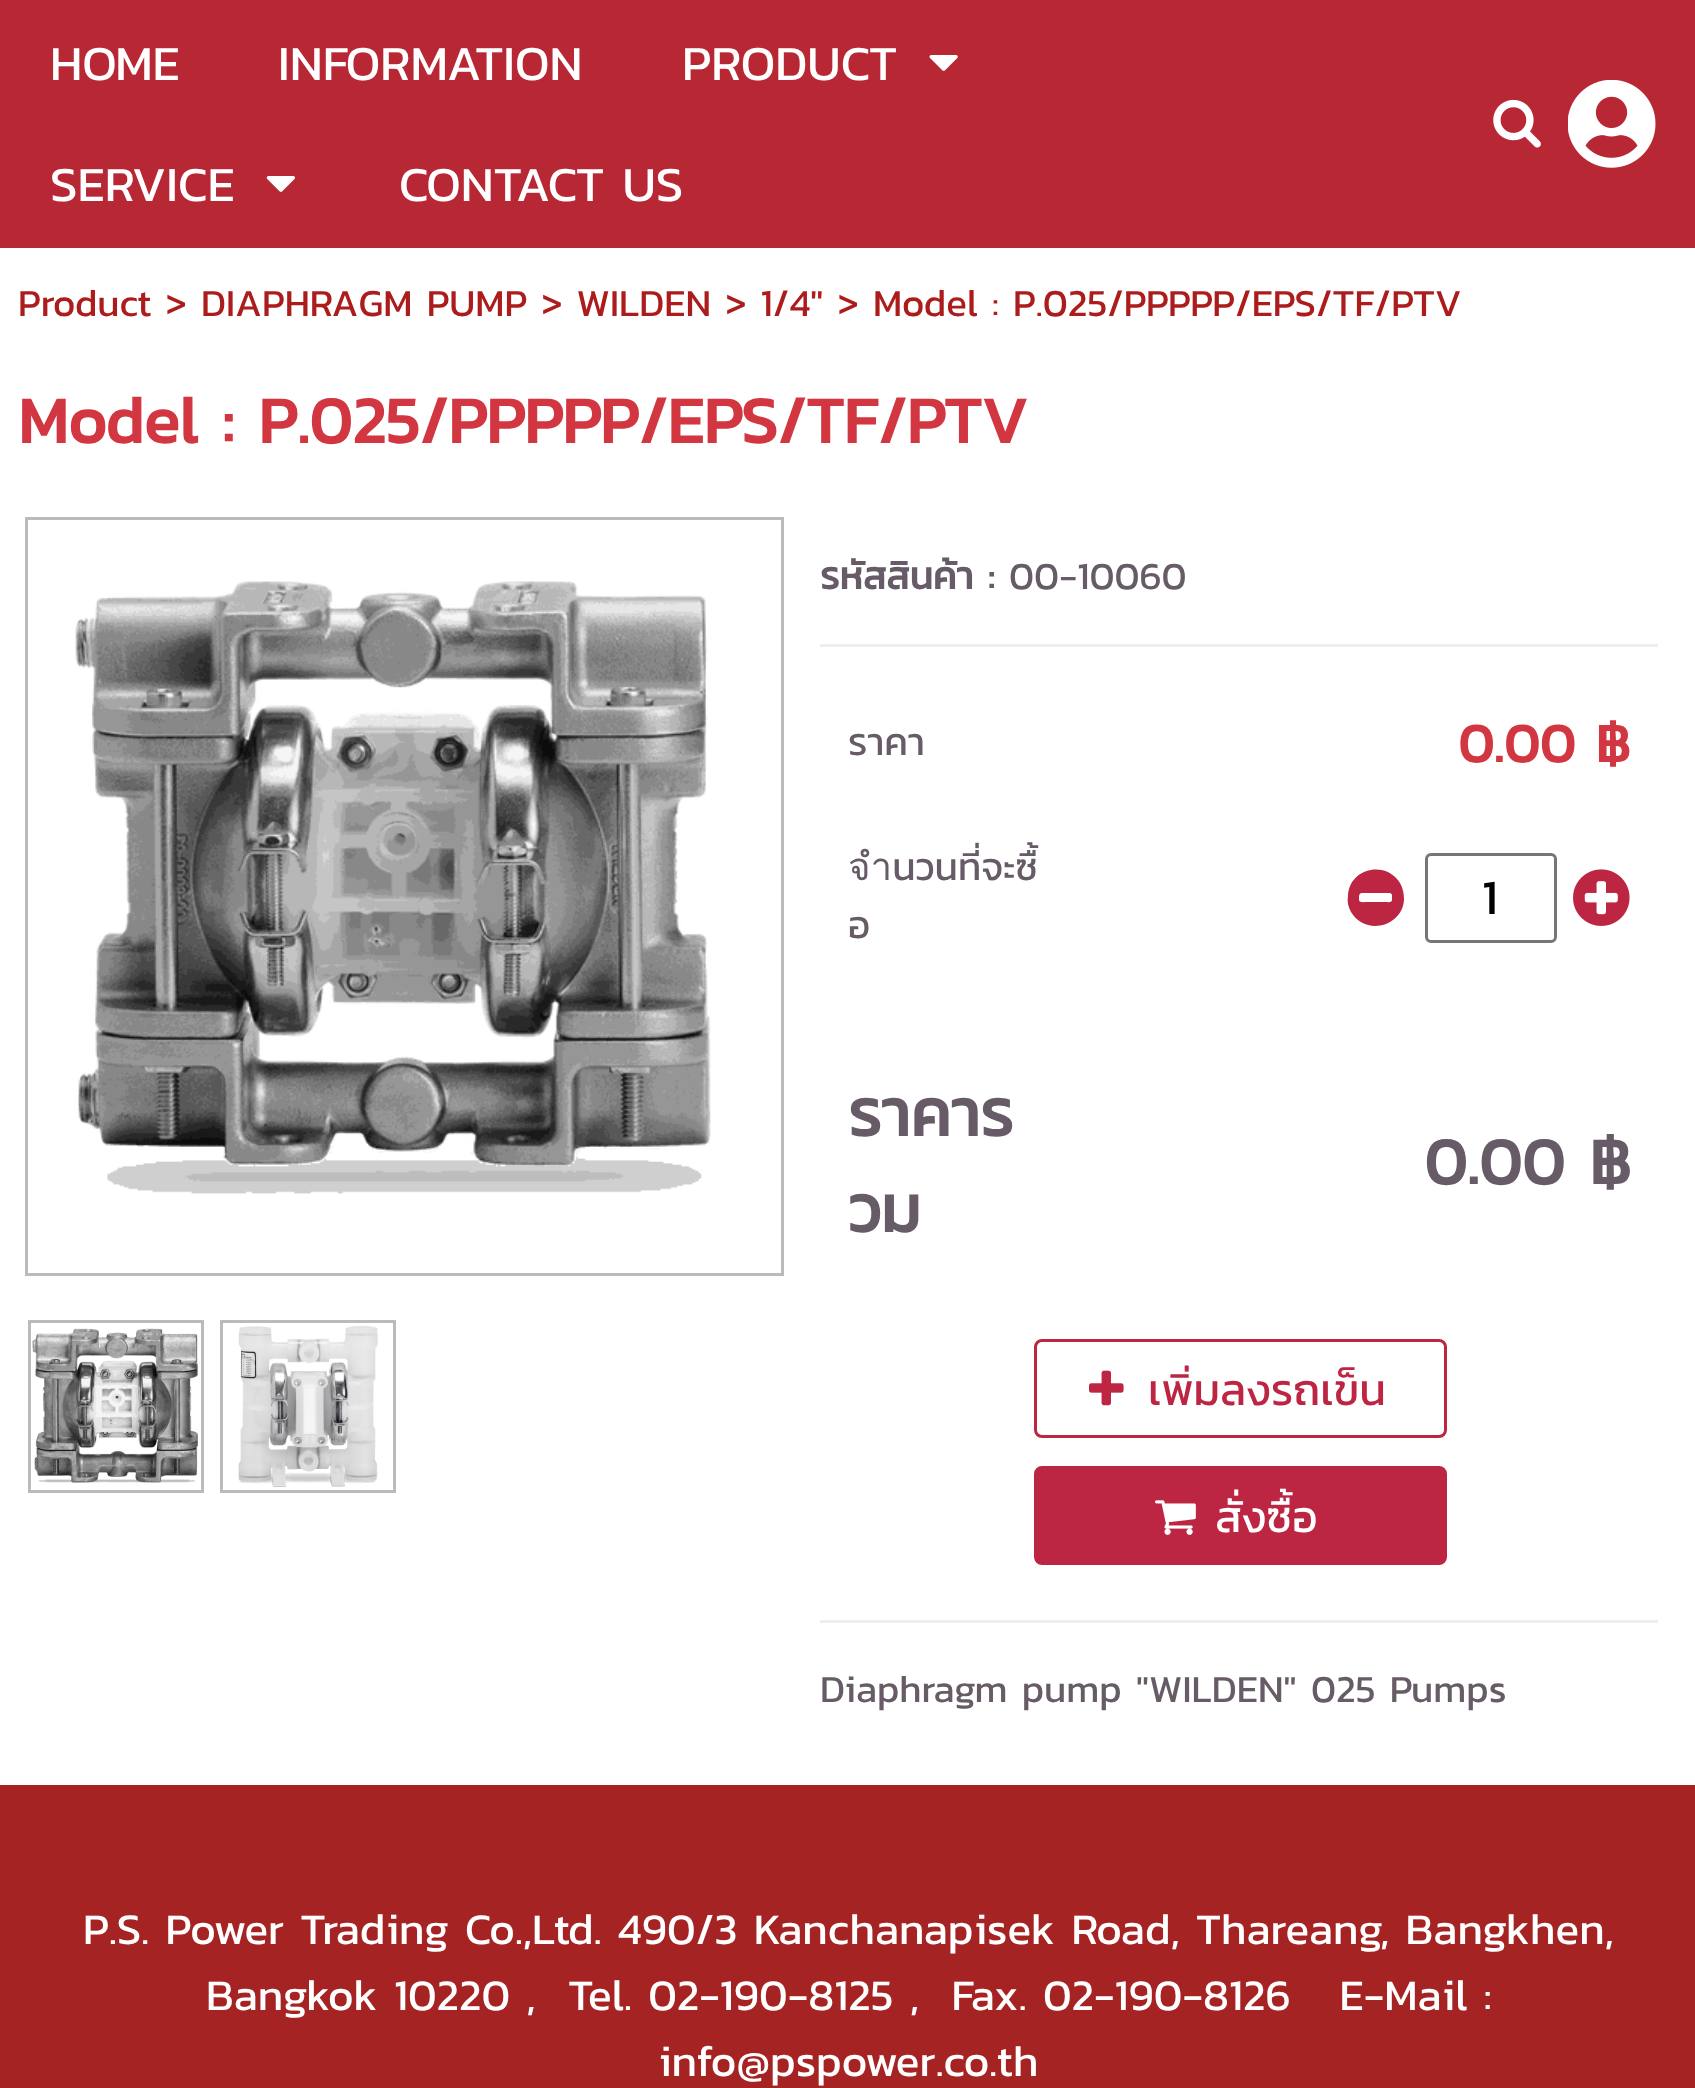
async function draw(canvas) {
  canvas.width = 1695;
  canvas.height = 2088;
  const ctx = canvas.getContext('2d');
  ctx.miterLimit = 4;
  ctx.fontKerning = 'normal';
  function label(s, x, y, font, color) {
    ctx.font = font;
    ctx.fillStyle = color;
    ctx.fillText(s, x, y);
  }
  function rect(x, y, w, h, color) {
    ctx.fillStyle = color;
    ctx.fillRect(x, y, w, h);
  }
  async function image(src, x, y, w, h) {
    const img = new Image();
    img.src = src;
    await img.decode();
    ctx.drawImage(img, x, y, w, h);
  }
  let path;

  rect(0, 0, 1695, 2088, '#fff');
  rect(0, 0, 1695, 248, '#b82834');
  label('HOME', 50, 80, '49.5px Kanit', '#fff');
  label('INFORMATION', 278, 80, '49.5px Kanit', '#fff');
  label('PRODUCT', 682, 80, '49.5px Kanit', '#fff');
  await image('assets/img1.png', 929, 55, 29, 16);
  label('SERVICE', 50, 201, '49.5px Kanit', '#fff');
  await image('assets/img2.png', 266, 176, 29, 16);
  label('CONTACT US', 399, 201, '49.5px Kanit', '#fff');
  await image('assets/img3.png', 1493, 99, 48, 49);
  await image('assets/img4.png', 1568, 80, 88, 88);
  label('Product > DIAPHRAGM PUMP > WILDEN > 1/4" > Model : P.025/PPPPP/EPS/TF/PTV', 18, 316, '38.5px Kanit', '#ad1c1c');
  label('Model : P.025/PPPPP/EPS/TF/PTV', 18, 443, 'bold 66px Kanit', '#d23641');
  ctx.strokeStyle = '#bbb';
  ctx.lineWidth = 3;
  ctx.strokeRect(26.5, 518.5, 756, 756);
  await image('assets/img5.png', 75, 581, 636, 613);
  ctx.strokeRect(29.5, 1321.5, 173, 170);
  await image('assets/img6.png', 32, 1328, 166, 155);
  ctx.strokeRect(221.5, 1321.5, 173, 170);
  await image('assets/img7.png', 238, 1325, 140, 162);
  label('รหัสสินค้า :', 820, 589, 'bold 38.5px Kanit', '#665b66');
  label('00-10060', 1009, 589, '38.5px Kanit', '#665b66');
  rect(820, 644, 838, 3, '#eee');
  rect(820, 1620, 838, 3, '#eee');
  label('ราคา', 848, 755, '38.5px Kanit', '#665b66');
  label('0.00 ฿', 1458, 762, 'bold 55px Kanit', '#d23641');
  label('จำนวนที่จะซื้', 848, 880, '38.5px Kanit', '#665b66');
  label('อ', 848, 938, '38.5px Kanit', '#665b66');
  ctx.fillStyle = '#bd2642';
  path = new Path2D('M1392 900C1392 893 1393 893 1385 893H1366C1359 893 1359 893 1359 900C1359 903 1365 902 1366 902H1385C1387 902 1392 903 1392 900ZM1400 883C1403 888 1404 894 1404 900C1402 927 1365 936 1351 912C1348 907 1347 901 1348 896C1349 868 1386 860 1400 883Z');
  ctx.fill(path);
  ctx.beginPath();
  ctx.roundRect(1426.5, 854.5, 129, 87, 4.5);
  ctx.strokeStyle = '#767676';
  ctx.stroke();
  label('1', 1482, 914, '49.5px Kanit', '#000');
  await image('assets/img8.png', 1573, 869, 57, 57);
  label('ราคาร', 848, 1136, 'bold 66px Kanit', '#665b66');
  label('วม', 848, 1232, 'bold 66px Kanit', '#665b66');
  label('0.00 ฿', 1424, 1184, 'bold 66px Kanit', '#665b66');
  ctx.beginPath();
  ctx.roundRect(1035.5, 1340.5, 410, 96, 6.5);
  ctx.strokeStyle = '#bd2642';
  ctx.stroke();
  await image('assets/img9.png', 1089, 1370, 35, 36);
  label('เพิ่มลงรถเข็น', 1148, 1405, '44px Kanit', '#bd2642');
  ctx.beginPath();
  ctx.roundRect(1035.5, 1467.5, 410, 96, 6.5);
  ctx.fill();
  ctx.stroke();
  await image('assets/img10.png', 1155, 1500, 41, 35);
  label('สั่งซื้อ', 1215, 1532, '44px Kanit', '#fff');
  label('Diaphragm pump "WILDEN" 025 Pumps', 820, 1702, '38.5px Kanit', '#665b66');
  rect(0, 1785, 1695, 303, '#a62323');
  label('P.S. Power Trading Co.,Ltd. 490/3 Kanchanapisek Road, Thareang, Bangkhen,', 83, 1944, '44px Kanit', '#fff');
  label('Bangkok 10220 ,  Tel. 02-190-8125 ,  Fax. 02-190-8126   E-Mail :', 206, 2010, '44px Kanit', '#fff');
  label('info@pspower.co.th', 658, 2076, '44px Kanit', '#fff');
}

draw(document.querySelector('canvas'));
